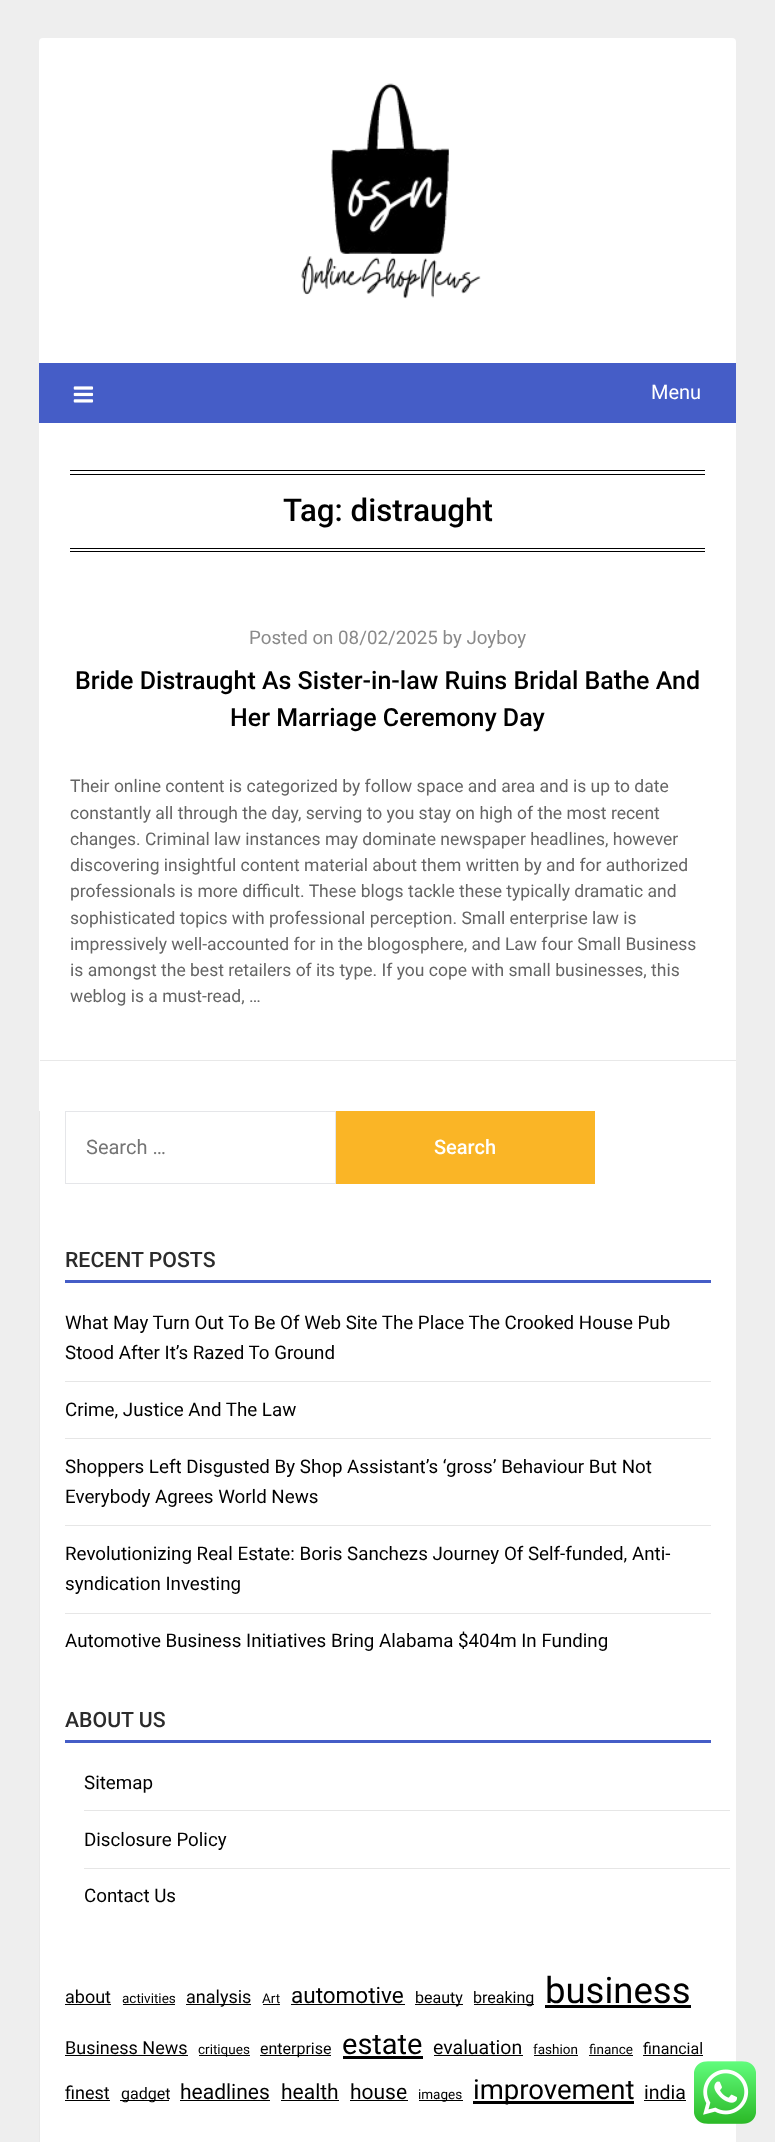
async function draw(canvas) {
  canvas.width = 775;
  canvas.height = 2142;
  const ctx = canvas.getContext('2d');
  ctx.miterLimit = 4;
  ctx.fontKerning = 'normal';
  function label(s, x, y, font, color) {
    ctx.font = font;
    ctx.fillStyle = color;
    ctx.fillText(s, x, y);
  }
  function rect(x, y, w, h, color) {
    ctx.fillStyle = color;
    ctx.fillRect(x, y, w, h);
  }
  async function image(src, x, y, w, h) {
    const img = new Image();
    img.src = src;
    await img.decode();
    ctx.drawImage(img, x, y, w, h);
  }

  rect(0, 0, 775, 2142, '#eee');
  ctx.fillStyle = '#fff';
  ctx.beginPath();
  ctx.roundRect(39, 38, 697, 325, [4, 4, 0, 0]);
  ctx.fill();
  await image('assets/img1.png', 301, 83, 180, 216);
  rect(39, 363, 697, 60, '#455dc7');
  await image('assets/img2.png', 73, 386, 21, 17);
  label('Menu', 651, 399, '20px Roboto', '#fff');
  rect(39, 423, 697, 1719, '#fff');
  rect(70, 470, 635, 1, '#000');
  rect(70, 474, 635, 1, '#000');
  rect(70, 548, 635, 1, '#000');
  rect(70, 551, 635, 1, '#000');
  label('Tag: distraught', 283, 521, '500 31.25px Roboto', '#000');
  rect(40, 1060, 696, 1, '#e8e8e8');
  label('Posted on 08/02/2025 by Joyboy', 249, 644, '18.75px Roboto', '#8a8a8a');
  label('Bride Distraught As Sister-in-law Ruins Bridal Bathe And', 75, 689, '500 25px Roboto', '#000');
  label('Her Marriage Ceremony Day', 230, 726, '500 25px Roboto', '#000');
  label('Their online content is categorized by follow space and area and is up to date', 70, 792, '17.5px Roboto', '#656565');
  label('constantly all through the day, serving to you stay on high of the most recent', 70, 819, '17.5px Roboto', '#656565');
  label('changes. Criminal law instances may dominate newspaper headlines, however', 70, 845, '17.5px Roboto', '#656565');
  label('discovering insightful content material about them written by and for authorized', 70, 871, '17.5px Roboto', '#656565');
  label('professionals is more difficult. These blogs tackle these typically dramatic and', 70, 897, '17.5px Roboto', '#656565');
  label('sophisticated topics with professional perception. Small enterprise law is', 70, 924, '17.5px Roboto', '#656565');
  label('impressively well-accounted for in the blogosphere, and Law four Small Business', 70, 950, '17.5px Roboto', '#656565');
  label('is amongst the best retailers of its type. If you cope with small businesses, this', 70, 976, '17.5px Roboto', '#656565');
  label('weblog is a must-read, …', 70, 1002, '17.5px Roboto', '#656565');
  rect(39, 1111, 1, 1031, '#e8e8e8');
  ctx.strokeStyle = '#e5e6e9';
  ctx.strokeRect(65.5, 1111.5, 270, 72);
  label('Search …', 86, 1154, '20px Roboto', '#757575');
  rect(336, 1111, 259, 73, '#fab526');
  label('Search', 434, 1154, '500 20px Roboto', '#fff');
  rect(65, 1280, 646, 3, '#455dc7');
  label('RECENT POSTS', 65, 1267, '500 21.25px Roboto', '#2b2b2b');
  rect(65, 1381, 646, 1, '#e6e6e6');
  label('What May Turn Out To Be Of Web Site The Place The Crooked House Pub', 65, 1329, '18.75px Roboto', '#000');
  label('Stood After It’s Razed To Ground', 65, 1359, '18.75px Roboto', '#000');
  rect(65, 1438, 646, 1, '#e6e6e6');
  label('Crime, Justice And The Law', 65, 1416, '18.75px Roboto', '#000');
  rect(65, 1525, 646, 1, '#e6e6e6');
  label('Shoppers Left Disgusted By Shop Assistant’s ‘gross’ Behaviour But Not', 65, 1473, '18.75px Roboto', '#000');
  label('Everybody Agrees World News', 65, 1503, '18.75px Roboto', '#000');
  rect(65, 1613, 646, 1, '#e6e6e6');
  label('Revolutionizing Real Estate: Boris Sanchezs Journey Of Self-funded, Anti-', 65, 1560, '18.75px Roboto', '#000');
  label('syndication Investing', 65, 1590, '18.75px Roboto', '#000');
  label('Automotive Business Initiatives Bring Alabama $404m In Funding', 65, 1647, '18.75px Roboto', '#000');
  rect(65, 1740, 646, 3, '#455dc7');
  label('ABOUT US', 65, 1727, '500 21.25px Roboto', '#2b2b2b');
  rect(84, 1810, 646, 1, '#e6e6e6');
  label('Sitemap', 84, 1789, '18.75px Roboto', '#000');
  rect(84, 1868, 646, 1, '#e6e6e6');
  label('Disclosure Policy', 84, 1846, '18.75px Roboto', '#000');
  label('Contact Us', 84, 1902, '18.75px Roboto', '#000');
  label('about', 65, 2003, '18px Roboto', '#000');
  rect(65, 2004, 46, 1, '#000');
  label('activities', 122, 2003, '13.5px Roboto', '#000');
  rect(123, 2004, 52, 1, '#000');
  rect(186, 2004, 65, 1, '#000');
  label('analysis', 186, 2003, '18px Roboto', '#000');
  label('Art', 262, 2003, '13.5px Roboto', '#000');
  rect(263, 2004, 17, 1, '#000');
  label('automotive', 291, 2003, '22.5px Roboto', '#000');
  rect(291, 2004, 114, 1, '#000');
  rect(415, 2004, 48, 1, '#000');
  label('beauty', 415, 2003, '16px Roboto', '#000');
  rect(474, 2004, 60, 1, '#000');
  label('breaking', 473, 2003, '16px Roboto', '#000');
  label('business', 545, 2003, '36.5px Roboto', '#000');
  rect(545, 2005, 146, 3, '#000');
  label('Business News', 65, 2054, '18px Roboto', '#000');
  rect(65, 2055, 123, 1, '#000');
  rect(199, 2055, 51, 1, '#000');
  label('critiques', 198, 2054, '13.5px Roboto', '#000');
  rect(260, 2055, 71, 1, '#000');
  label('enterprise', 260, 2054, '16px Roboto', '#000');
  label('estate', 342, 2054, '29px Roboto', '#000');
  rect(343, 2056, 80, 3, '#000');
  label('evaluation', 433, 2054, '19.5px Roboto', '#000');
  rect(434, 2055, 89, 1, '#000');
  label('fashion', 533, 2054, '13.5px Roboto', '#000');
  rect(534, 2055, 44, 1, '#000');
  label('finance', 589, 2054, '13.5px Roboto', '#000');
  rect(589, 2055, 44, 1, '#000');
  label('financial', 643, 2054, '16px Roboto', '#000');
  rect(643, 2055, 60, 1, '#000');
  label('finest', 65, 2099, '18px Roboto', '#000');
  rect(65, 2100, 45, 1, '#000');
  rect(120, 2100, 49, 1, '#000');
  label('gadget', 121, 2099, '16px Roboto', '#000');
  label('headlines', 180, 2099, '21px Roboto', '#000');
  rect(180, 2100, 90, 1, '#000');
  label('health', 281, 2099, '21px Roboto', '#000');
  rect(281, 2100, 58, 1, '#000');
  label('house', 350, 2099, '21px Roboto', '#000');
  rect(350, 2100, 58, 1, '#000');
  rect(419, 2100, 44, 1, '#000');
  label('images', 418, 2099, '13.5px Roboto', '#000');
  rect(473, 2101, 161, 3, '#000');
  label('improvement', 473, 2099, '27.5px Roboto', '#000');
  label('india', 644, 2099, '19.5px Roboto', '#000');
  rect(644, 2100, 42, 1, '#000');
  await image('assets/img3.png', 694, 2061, 62, 63);
}

draw(document.querySelector('canvas'));
